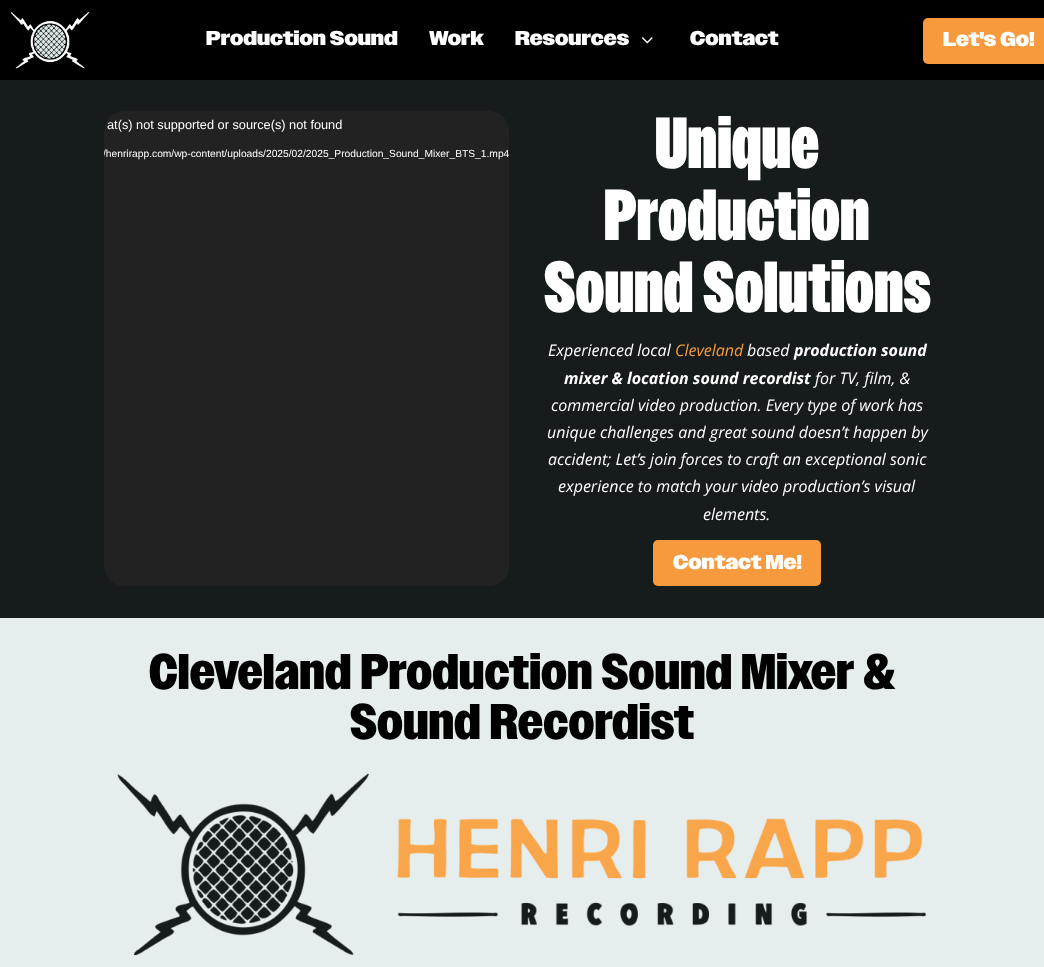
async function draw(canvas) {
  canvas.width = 1044;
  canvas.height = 967;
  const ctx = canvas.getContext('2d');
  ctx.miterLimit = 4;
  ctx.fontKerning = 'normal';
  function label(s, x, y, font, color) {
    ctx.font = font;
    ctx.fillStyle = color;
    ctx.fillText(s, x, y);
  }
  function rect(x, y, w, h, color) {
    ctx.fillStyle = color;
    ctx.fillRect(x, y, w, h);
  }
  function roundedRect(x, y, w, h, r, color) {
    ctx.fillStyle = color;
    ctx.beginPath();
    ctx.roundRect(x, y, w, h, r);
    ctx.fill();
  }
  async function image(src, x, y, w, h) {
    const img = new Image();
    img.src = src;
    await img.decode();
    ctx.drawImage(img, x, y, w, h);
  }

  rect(0, 0, 1044, 967, '#000');
  await image('assets/img1.png', 10, 11, 80, 58);
  label('Production Sound', 206, 45, '900 20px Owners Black', '#fff');
  label('Work', 429, 45, '900 20px Owners Black', '#fff');
  label('Resources', 515, 45, '900 20px Owners Black', '#fff');
  await image('assets/img2.png', 642, 37, 11, 7);
  label('Contact', 690, 45, '900 20px Owners Black', '#fff');
  roundedRect(923, 18, 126, 46, 5, '#f79a3e');
  label('Let\'s Go!', 943, 46, '900 20px Owners Black', '#fff');
  rect(0, 618, 1044, 349, '#e6eded');
  rect(0, 80, 1044, 538, '#161b1c');
  roundedRect(104, 111, 405, 475, 20, '#222');
  label('at(s) not supported or source(s) not found', 107, 129, '12.75px Liberation Sans', '#fff');
  ctx.save();
  ctx.beginPath();
  ctx.rect(104, 111, 405, 475);
  ctx.clip();
  label('/henrirapp.com/wp-content/uploads/2025/02/2025_Production_Sound_Mixer_BTS_1.mp4', 103, 157, '10.25px Liberation Sans', '#fff');
  ctx.restore();
  label('Unique', 655, 168, '900 72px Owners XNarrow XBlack', '#fff');
  label('Production', 604, 240, '900 72px Owners XNarrow XBlack', '#fff');
  label('Sound Solutions', 544, 312, '900 72px Owners XNarrow XBlack', '#fff');
  label('Experienced local', 548, 356, 'italic 16px Open Sans', '#fff');
  label('Cleveland', 675, 356, 'italic 16px Open Sans', '#f79a3e');
  label('based', 747, 356, 'italic 16px Open Sans', '#fff');
  label('production sound', 794, 356, 'italic bold 16px Open Sans', '#fff');
  label('mixer & location sound recordist', 564, 384, 'italic bold 16px Open Sans', '#fff');
  label('for TV, film, &', 815, 384, 'italic 16px Open Sans', '#fff');
  label('commercial video production. Every type of work has', 551, 411, 'italic 16px Open Sans', '#fff');
  label('unique challenges and great sound doesn’t happen by', 547, 438, 'italic 16px Open Sans', '#fff');
  label('accident; Let’s join forces to craft an exceptional sonic', 548, 465, 'italic 16px Open Sans', '#fff');
  label('experience to match your video production’s visual', 558, 492, 'italic 16px Open Sans', '#fff');
  label('elements.', 703, 520, 'italic 16px Open Sans', '#fff');
  roundedRect(653, 540, 168, 46, 5, '#f79a3e');
  label('Contact Me!', 673, 569, '900 20px Owners Black', '#fff');
  label('Cleveland Production Sound Mixer &', 149, 689, '900 50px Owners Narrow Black', '#000');
  label('Sound Recordist', 350, 739, '900 50px Owners Narrow Black', '#000');
  await image('assets/img3.png', 117, 773, 809, 183);
}

draw(document.querySelector('canvas'));
